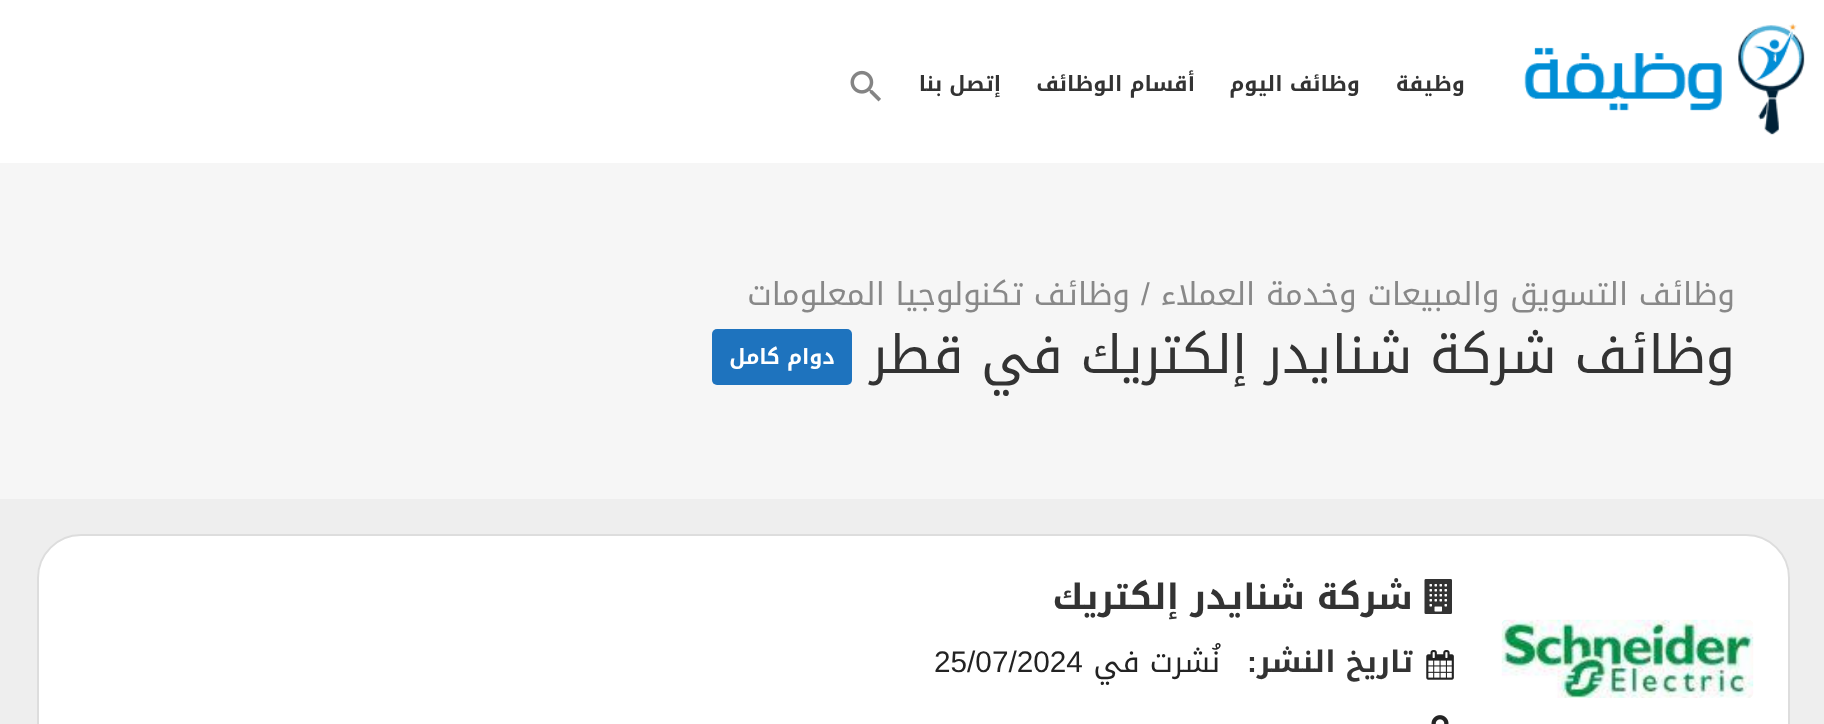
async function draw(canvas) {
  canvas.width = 1824;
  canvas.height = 724;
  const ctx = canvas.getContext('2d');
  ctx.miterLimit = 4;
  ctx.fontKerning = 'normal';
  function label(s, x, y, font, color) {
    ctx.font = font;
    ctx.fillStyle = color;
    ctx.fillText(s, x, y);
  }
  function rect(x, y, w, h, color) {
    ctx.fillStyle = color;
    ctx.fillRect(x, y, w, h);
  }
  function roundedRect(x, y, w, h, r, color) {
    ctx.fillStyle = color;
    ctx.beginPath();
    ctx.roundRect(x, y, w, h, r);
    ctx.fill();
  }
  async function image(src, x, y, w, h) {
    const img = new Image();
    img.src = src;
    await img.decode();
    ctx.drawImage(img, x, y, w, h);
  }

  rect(0, 0, 1824, 724, '#fff');
  rect(0, 499, 1824, 225, '#eee');
  await image('assets/img1.png', 1524, 23, 281, 112);
  ctx.direction = 'rtl';
  label('وظيفة', 1465, 91, 'bold 21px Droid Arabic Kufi', '#333');
  label('وظائف اليوم', 1360, 91, 'bold 21px Droid Arabic Kufi', '#333');
  label('أقسام الوظائف', 1195, 91, 'bold 21px Droid Arabic Kufi', '#333');
  label('إتصل بنا', 1001, 91, 'bold 21px Droid Arabic Kufi', '#333');
  await image('assets/img2.png', 850, 70, 31, 32);
  rect(0, 163, 1824, 336, '#f6f6f6');
  label('وظائف التسويق والمبيعات وخدمة العملاء', 1735, 305, '31.5px Droid Arabic Kufi', '#888');
  ctx.direction = 'ltr';
  label('/', 1141, 305, '31.5px Liberation Sans', '#888');
  ctx.direction = 'rtl';
  label('وظائف تكنولوجيا المعلومات', 1130, 305, '31.5px Droid Arabic Kufi', '#888');
  label('وظائف شركة شنايدر إلكتريك في قطر', 1735, 373, '52.5px Droid Arabic Kufi', '#333');
  roundedRect(712, 329, 140, 56, 5, '#1e73be');
  label('دوام كامل', 835, 364, 'bold 21px Droid Arabic Kufi', '#fff');
  ctx.beginPath();
  ctx.roundRect(38, 535, 1751, 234, 43);
  ctx.fill();
  ctx.strokeStyle = '#ddd';
  ctx.lineWidth = 2;
  ctx.stroke();
  await image('assets/img3.png', 1501, 619, 253, 79);
  await image('assets/img4.png', 1424, 579, 28, 35);
  label('شركة شنايدر إلكتريك', 1413, 609, 'bold 35px Droid Arabic Kufi', '#333');
  await image('assets/img5.png', 1426, 650, 28, 30);
  label('تاريخ النشر', 1413, 672, 'bold 29.75px Droid Arabic Kufi', '#333');
  label(':', 1257, 672, 'bold 29.75px Liberation Sans', '#333');
  label('نُشرت في', 1220, 672, '29.75px Droid Arabic Kufi', '#232323');
  ctx.direction = 'ltr';
  label('25/07/2024', 934, 672, '29.75px Liberation Sans', '#232323');
  await image('assets/img6.png', 1431, 715, 18, 9);
}

draw(document.querySelector('canvas'));
